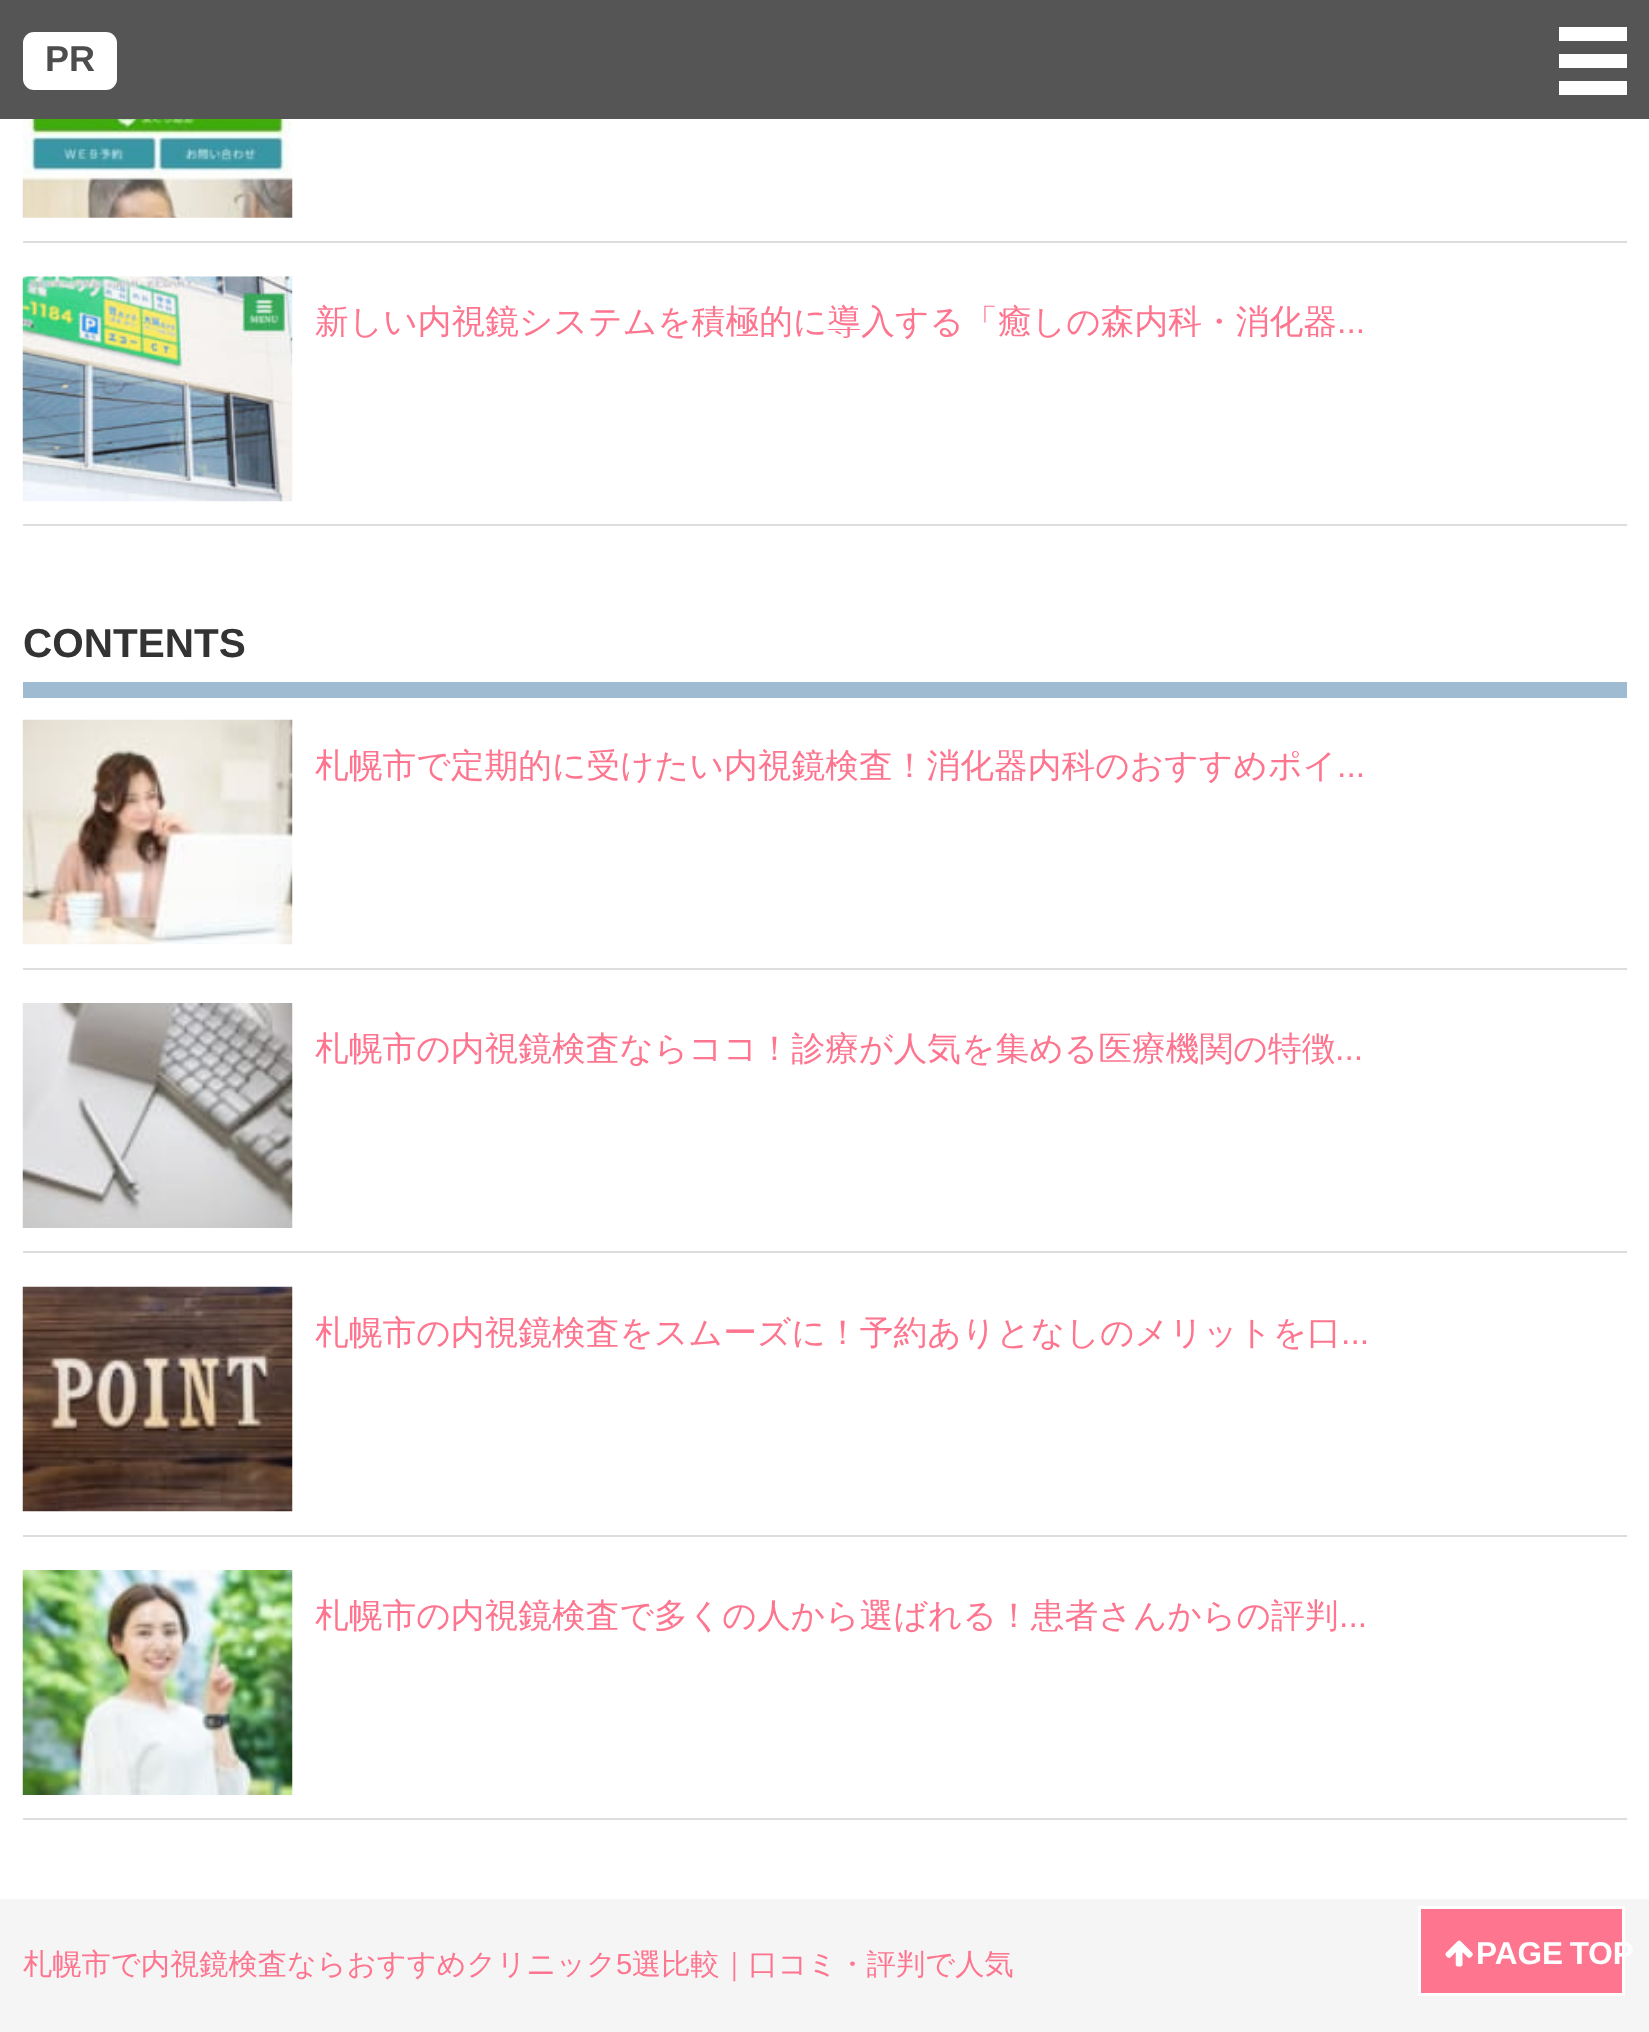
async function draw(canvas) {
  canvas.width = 1649;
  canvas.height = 2032;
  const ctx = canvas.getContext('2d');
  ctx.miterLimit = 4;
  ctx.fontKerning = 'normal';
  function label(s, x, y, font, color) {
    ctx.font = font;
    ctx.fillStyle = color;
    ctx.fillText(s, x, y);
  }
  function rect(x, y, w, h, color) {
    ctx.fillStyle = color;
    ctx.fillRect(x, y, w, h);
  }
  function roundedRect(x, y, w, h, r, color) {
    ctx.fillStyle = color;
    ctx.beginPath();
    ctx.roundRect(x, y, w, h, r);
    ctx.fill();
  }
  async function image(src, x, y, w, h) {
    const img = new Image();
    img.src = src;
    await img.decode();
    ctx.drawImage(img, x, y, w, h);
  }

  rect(0, 0, 1649, 2032, '#fff');
  rect(0, 0, 1649, 119, '#555');
  rect(1559, 27, 68, 68, '#fff');
  rect(1559, 41, 68, 13, '#555');
  rect(1559, 68, 68, 13, '#555');
  roundedRect(23, 32, 94, 58, 11, '#fff');
  label('PR', 45, 71, 'bold 36px Liberation Sans', '#4d4d4d');
  rect(23, 241, 1604, 2, '#ddd');
  await image('assets/img1.png', 22, 119, 271, 99);
  rect(23, 524, 1604, 2, '#ddd');
  await image('assets/img2.png', 22, 276, 271, 226);
  label('新しい内視鏡システムを積極的に導入する「癒しの森内科・消化器', 315, 333, '500 33.75px WenQuanYi Zen Hei', '#fe758f');
  label('...', 1337, 333, '33.75px Liberation Sans', '#fe758f');
  rect(23, 682, 1604, 16, '#9fbbd1');
  label('CONTENTS', 23, 657, 'bold 40.5px Liberation Sans', '#333');
  rect(23, 968, 1604, 2, '#ddd');
  await image('assets/img3.png', 22, 719, 271, 226);
  label('札幌市で定期的に受けたい内視鏡検査！消化器内科のおすすめポイ', 315, 777, '500 33.75px WenQuanYi Zen Hei', '#fe758f');
  label('...', 1337, 777, '33.75px Liberation Sans', '#fe758f');
  rect(23, 1251, 1604, 2, '#ddd');
  await image('assets/img4.png', 22, 1003, 271, 225);
  label('札幌市の内視鏡検査ならココ！診療が人気を集める医療機関の特徴', 315, 1060, '500 33.75px WenQuanYi Zen Hei', '#fe758f');
  label('...', 1335, 1060, '33.75px Liberation Sans', '#fe758f');
  rect(23, 1535, 1604, 2, '#ddd');
  await image('assets/img5.png', 22, 1286, 271, 226);
  label('札幌市の内視鏡検査をスムーズに！予約ありとなしのメリットを口', 315, 1344, '500 33.75px WenQuanYi Zen Hei', '#fe758f');
  label('...', 1341, 1344, '33.75px Liberation Sans', '#fe758f');
  rect(23, 1818, 1604, 2, '#ddd');
  await image('assets/img6.png', 22, 1570, 271, 225);
  label('札幌市の内視鏡検査で多くの人から選ばれる！患者さんからの評判', 315, 1627, '500 33.75px WenQuanYi Zen Hei', '#fe758f');
  label('...', 1339, 1627, '33.75px Liberation Sans', '#fe758f');
  rect(0, 1899, 1649, 133, '#f5f5f5');
  label('札幌市で内視鏡検査ならおすすめクリニック', 23, 1974, '500 29.25px WenQuanYi Zen Hei', '#fe758f');
  label('5', 616, 1974, '29.25px Liberation Sans', '#fe758f');
  label('選比較｜口コミ・評判で人気', 632, 1974, '500 29.25px WenQuanYi Zen Hei', '#fe758f');
  ctx.beginPath();
  ctx.rect(1419.5, 1907.5, 204, 87);
  ctx.fill();
  ctx.strokeStyle = '#fff';
  ctx.lineWidth = 3;
  ctx.stroke();
  await image('assets/img7.png', 1445, 1940, 28, 27);
  ctx.wordSpacing = '-2px';
  label('PAGE TOP', 1476, 1964, 'bold 31.5px Liberation Sans', '#fff');
}

draw(document.querySelector('canvas'));
